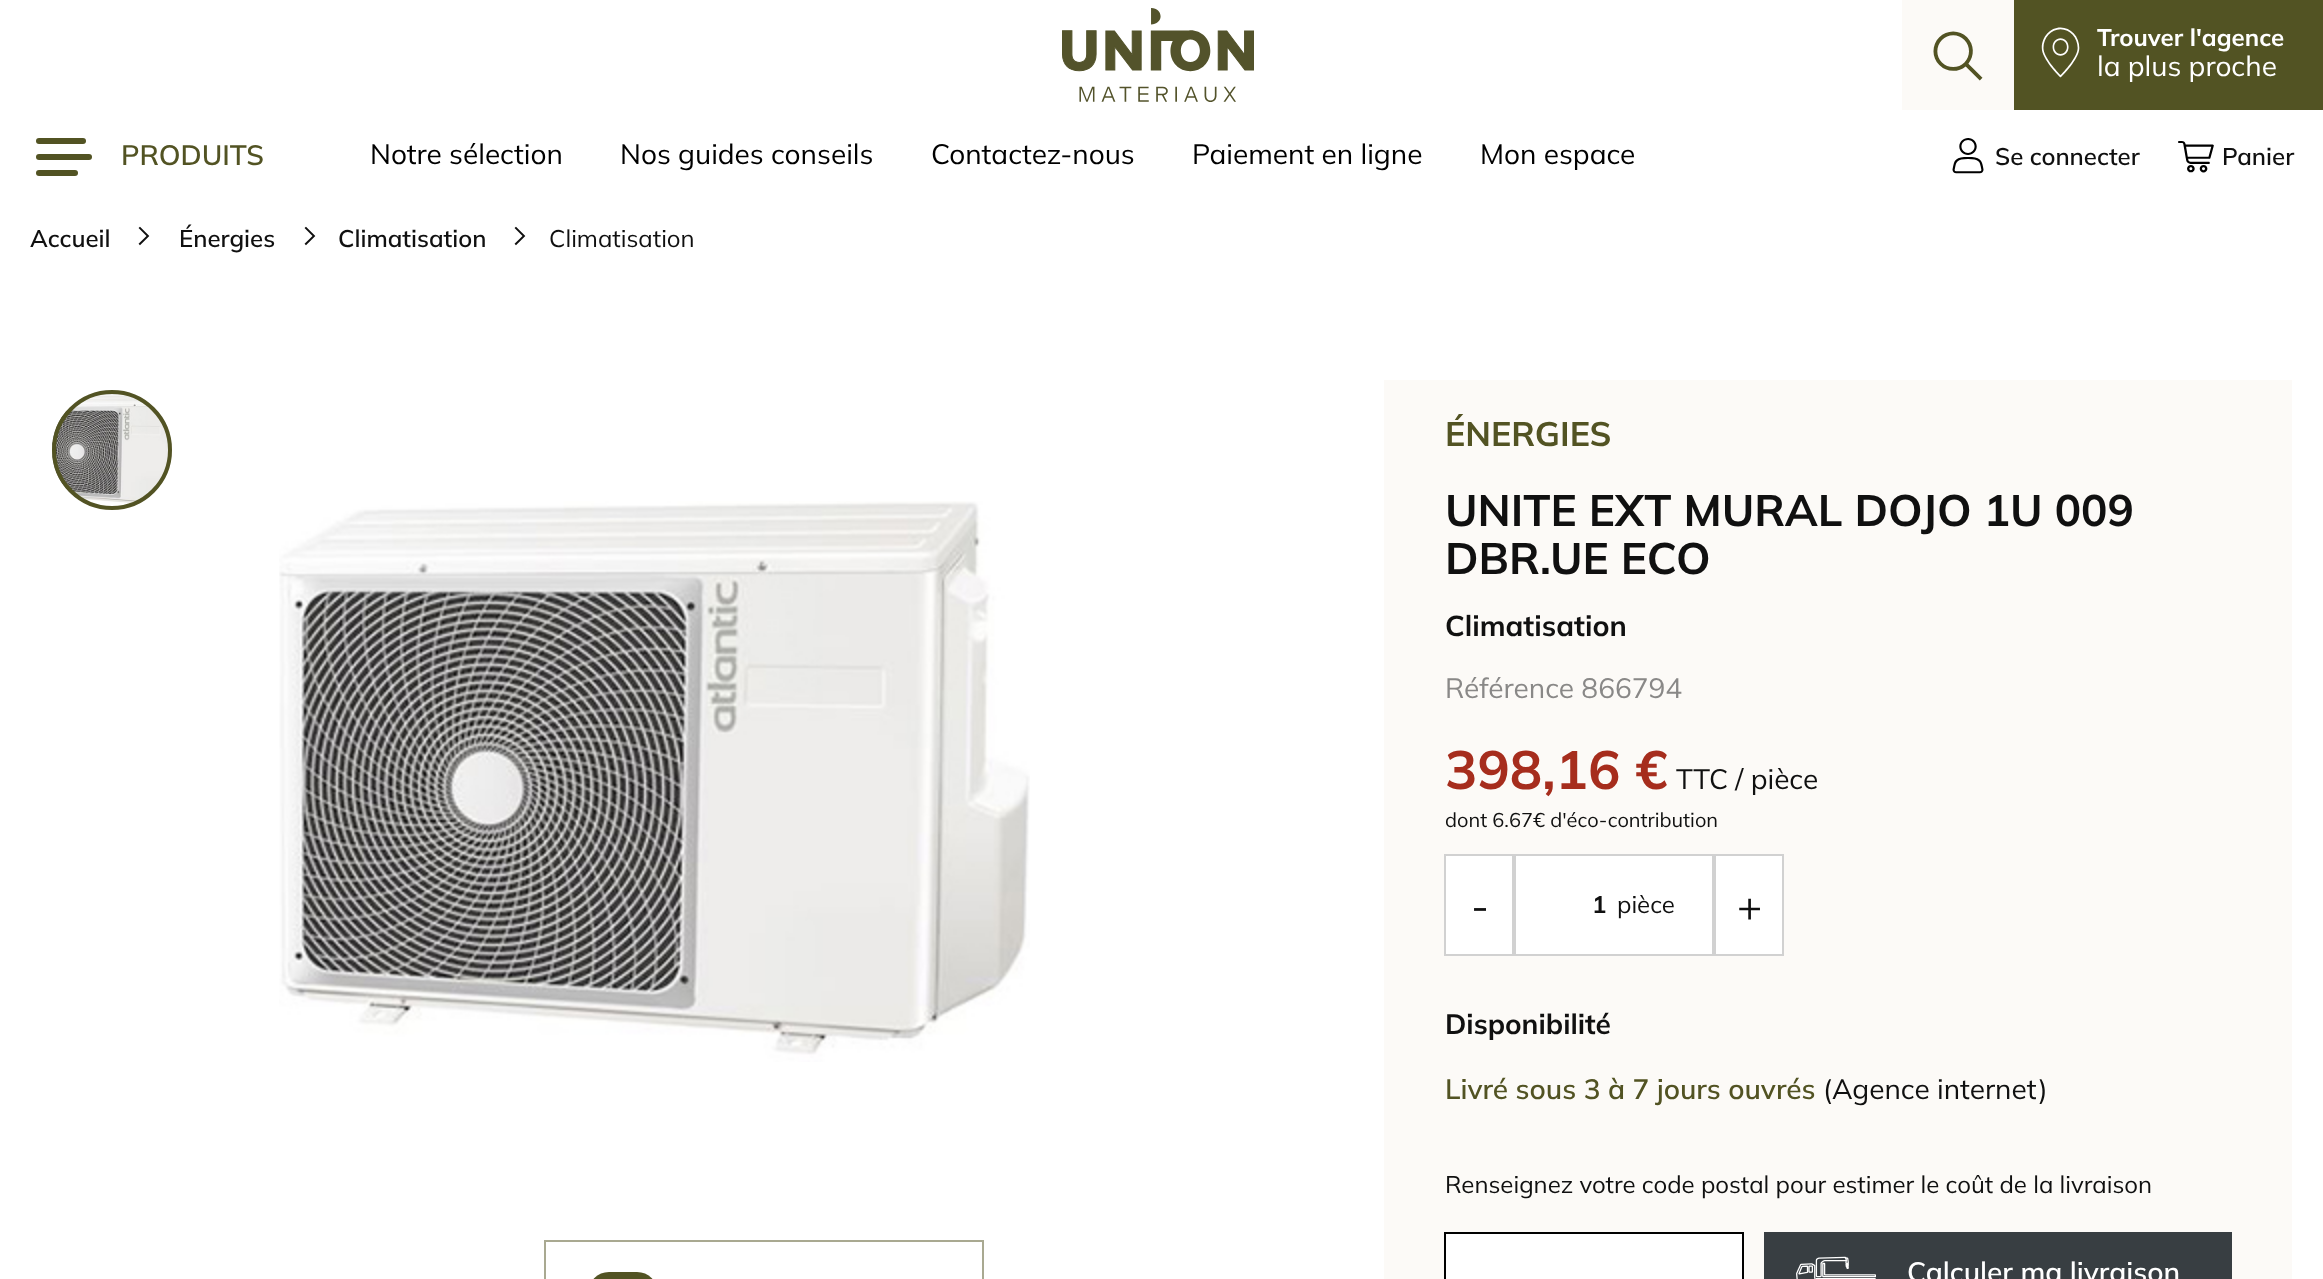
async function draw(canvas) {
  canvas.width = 2323;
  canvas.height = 1279;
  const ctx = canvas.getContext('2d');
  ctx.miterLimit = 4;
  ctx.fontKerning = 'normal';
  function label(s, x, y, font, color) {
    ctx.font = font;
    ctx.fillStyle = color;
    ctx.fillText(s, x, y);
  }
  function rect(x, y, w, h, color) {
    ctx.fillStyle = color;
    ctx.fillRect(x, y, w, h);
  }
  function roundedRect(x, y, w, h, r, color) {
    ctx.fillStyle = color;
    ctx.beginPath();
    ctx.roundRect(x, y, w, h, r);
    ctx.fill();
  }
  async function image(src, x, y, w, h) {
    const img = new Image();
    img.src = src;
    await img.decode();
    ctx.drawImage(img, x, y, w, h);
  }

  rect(0, 0, 2323, 1279, '#fff');
  await image('assets/img1.png', 1062, 8, 192, 94);
  rect(1902, 0, 112, 110, '#fcfaf7');
  await image('assets/img2.png', 1933, 31, 50, 50);
  rect(2014, 0, 309, 110, '#525323');
  await image('assets/img3.png', 2041, 27, 39, 51);
  label('Trouver l\'agence', 2097, 46, 'bold 24px Mulish', '#fff');
  label('la plus proche', 2097, 76, '28px Mulish', '#fff');
  roundedRect(36, 138, 50, 6, 3, '#525323');
  roundedRect(36, 154, 56, 6, 3, '#525323');
  roundedRect(36, 170, 42, 6, 3, '#525323');
  label('PRODUITS', 121, 165, '600 28px Mulish', '#525323');
  label('Notre sélection', 370, 164, '28px Mulish', '#000');
  label('Nos guides conseils', 620, 164, '28px Mulish', '#000');
  label('Contactez-nous', 931, 164, '28px Mulish', '#000');
  label('Paiement en ligne', 1192, 164, '28px Mulish', '#000');
  label('Mon espace', 1480, 164, '28px Mulish', '#000');
  await image('assets/img4.png', 1952, 138, 32, 36);
  label('Se connecter', 1995, 165, '600 24px Mulish', '#101010');
  await image('assets/img5.png', 2178, 141, 36, 32);
  label('Panier', 2222, 165, '600 24px Mulish', '#101010');
  label('Accueil', 30, 247, '600 24px Mulish', '#101010');
  await image('assets/img6.png', 138, 226, 12, 20);
  label('Énergies', 179, 247, '600 24px Mulish', '#101010');
  await image('assets/img6.png', 304, 226, 12, 20);
  label('Climatisation', 338, 247, '600 24px Mulish', '#101010');
  await image('assets/img6.png', 514, 226, 12, 20);
  label('Climatisation', 549, 247, '24px Mulish', '#101010');
  await image('assets/img7.png', 52, 392, 120, 112);
  ctx.beginPath();
  ctx.arc(112, 450, 58, 0, 2 * Math.PI);
  ctx.strokeStyle = '#525323';
  ctx.lineWidth = 4;
  ctx.stroke();
  await image('assets/img8.png', 279, 501, 751, 561);
  roundedRect(588, 1272, 70, 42, 35, '#525323');
  ctx.strokeStyle = '#a9a991';
  ctx.lineWidth = 2;
  ctx.strokeRect(545, 1241, 438, 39);
  rect(1384, 380, 908, 899, '#fcfaf7');
  label('ÉNERGIES', 1445, 446, 'bold 34px Mulish', '#525323');
  label('UNITE EXT MURAL DOJO 1U 009', 1445, 526, 'bold 44px Mulish', '#101010');
  label('DBR.UE ECO', 1445, 574, 'bold 44px Mulish', '#101010');
  label('Climatisation', 1445, 636, 'bold 28.75px Mulish', '#101010');
  label('Référence 866794', 1445, 698, '28px Mulish', '#898887');
  label('398,16 €', 1445, 789, 'bold 54px Mulish', '#a62d1d');
  label('TTC / pièce', 1676, 789, '28px Mulish', '#101010');
  label('dont 6.67€ d\'éco-contribution', 1445, 827, '20px Mulish', '#101010');
  rect(1446, 856, 336, 98, '#fff');
  ctx.strokeStyle = '#d1d1d1';
  ctx.strokeRect(1445, 855, 68, 100);
  label('-', 1471, 921, '42px Mulish', '#101010');
  ctx.strokeRect(1515, 855, 198, 100);
  label('1', 1592, 913, 'bold 24px Mulish', '#101010');
  label('pièce', 1617, 913, '24px Mulish', '#101010');
  ctx.strokeRect(1715, 855, 68, 100);
  label('+', 1737, 921, '42px Mulish', '#101010');
  label('Disponibilité', 1445, 1034, 'bold 28px Mulish', '#101010');
  label('Livré sous 3 à 7 jours ouvrés', 1445, 1099, '600 28px Mulish', '#525323');
  label('(Agence internet)', 1823, 1099, '28px Mulish', '#101010');
  label('Renseignez votre code postal pour estimer le coût de la livraison', 1445, 1193, '24px Mulish', '#101010');
  ctx.fillStyle = '#fff';
  ctx.beginPath();
  ctx.rect(1445, 1233, 298, 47);
  ctx.fill();
  ctx.strokeStyle = '#000';
  ctx.stroke();
  rect(1764, 1232, 468, 47, '#383e42');
  await image('assets/img9.png', 1796, 1256, 80, 23);
  label('Calculer ma livraison', 1907, 1282, '600 28px Mulish', '#fff');
}

draw(document.querySelector('canvas'));
